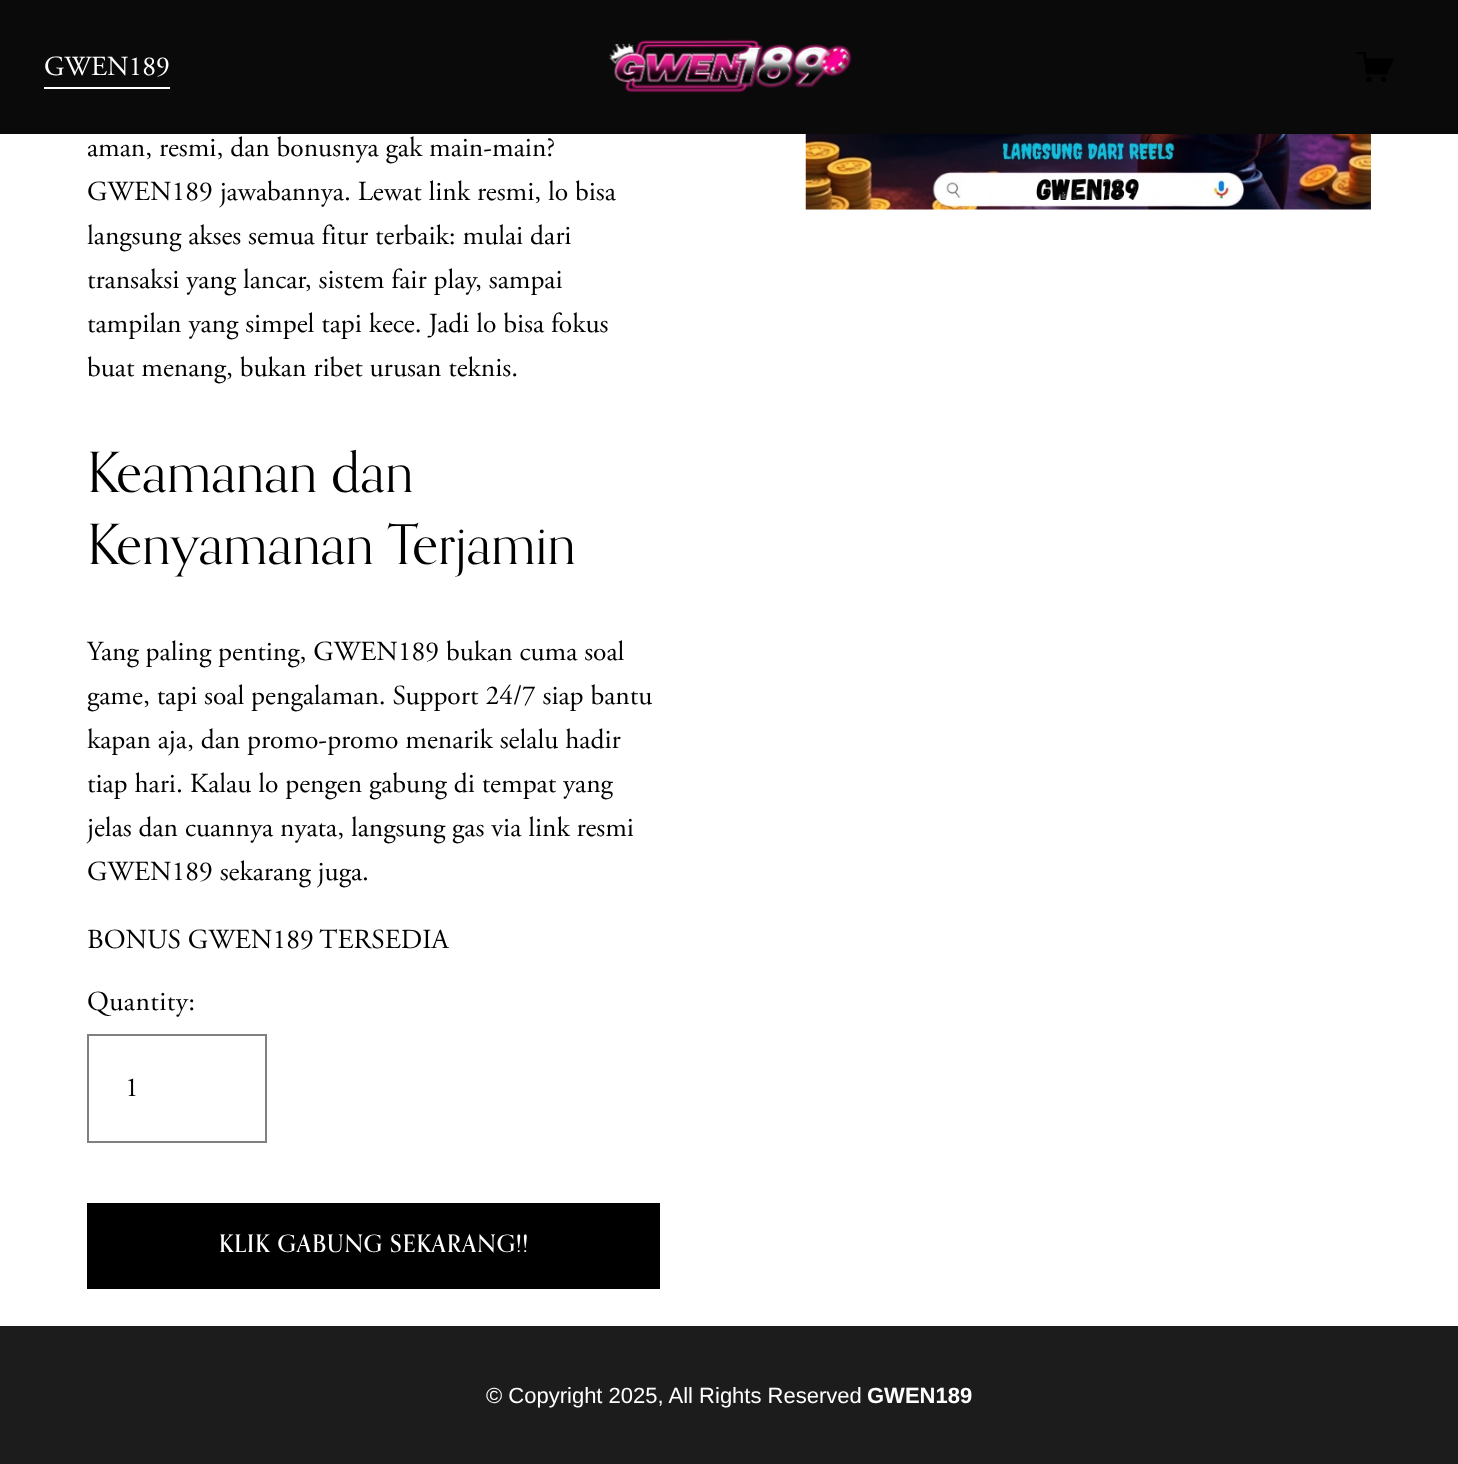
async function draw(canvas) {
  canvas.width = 1458;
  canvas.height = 1464;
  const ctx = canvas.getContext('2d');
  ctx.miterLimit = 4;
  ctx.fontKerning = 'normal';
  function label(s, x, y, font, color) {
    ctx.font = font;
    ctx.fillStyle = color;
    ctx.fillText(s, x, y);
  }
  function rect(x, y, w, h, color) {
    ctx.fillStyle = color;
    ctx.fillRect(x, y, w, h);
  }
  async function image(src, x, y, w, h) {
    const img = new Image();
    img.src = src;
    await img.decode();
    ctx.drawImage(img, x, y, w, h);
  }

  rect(0, 0, 1458, 1464, '#fff');
  rect(0, 0, 1458, 134, '#0a0a0a');
  rect(44, 87, 126, 2, '#fff');
  label('GWEN189', 44, 75, '27.5px Adobe Garamond', '#fff');
  await image('assets/img1.png', 609, 39, 243, 54);
  await image('assets/img2.png', 1356, 52, 38, 30);
  label('aman, resmi, dan bonusnya gak main-main?', 87, 156, '27.5px Adobe Garamond', '#000');
  label('GWEN189 jawabannya. Lewat link resmi, lo bisa', 87, 200, '27.5px Adobe Garamond', '#000');
  label('langsung akses semua fitur terbaik: mulai dari', 87, 244, '27.5px Adobe Garamond', '#000');
  label('transaksi yang lancar, sistem fair play, sampai', 87, 288, '27.5px Adobe Garamond', '#000');
  label('tampilan yang simpel tapi kece. Jadi lo bisa fokus', 87, 332, '27.5px Adobe Garamond', '#000');
  label('buat menang, bukan ribet urusan teknis.', 87, 376, '27.5px Adobe Garamond', '#000');
  label('Keamanan dan', 87, 492, '55.5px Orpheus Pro', '#000');
  label('Kenyamanan Terjamin', 87, 564, '55.5px Orpheus Pro', '#000');
  label('Yang paling penting, GWEN189 bukan cuma soal', 87, 660, '27.5px Adobe Garamond', '#000');
  label('game, tapi soal pengalaman. Support 24/7 siap bantu', 87, 704, '27.5px Adobe Garamond', '#000');
  label('kapan aja, dan promo-promo menarik selalu hadir', 87, 748, '27.5px Adobe Garamond', '#000');
  label('tiap hari. Kalau lo pengen gabung di tempat yang', 87, 792, '27.5px Adobe Garamond', '#000');
  label('jelas dan cuannya nyata, langsung gas via link resmi', 87, 836, '27.5px Adobe Garamond', '#000');
  label('GWEN189 sekarang juga.', 87, 880, '27.5px Adobe Garamond', '#000');
  label('BONUS GWEN189 TERSEDIA', 87, 948, '27.5px Adobe Garamond', '#000');
  ctx.letterSpacing = '0.5px';
  label('Quantity:', 87, 1010, '27.5px Adobe Garamond', '#000');
  ctx.strokeStyle = '#808080';
  ctx.lineWidth = 2;
  ctx.strokeRect(88, 1035, 178, 107);
  ctx.letterSpacing = '0px';
  label('1', 125, 1096, '27.5px Adobe Garamond', '#000');
  rect(87, 1203, 573, 86, '#000');
  ctx.letterSpacing = '1px';
  label('KLIK GABUNG SEKARANG!!', 219, 1252, '500 24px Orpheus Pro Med', '#fff');
  await image('assets/img3.png', 805, 134, 566, 76);
  rect(0, 1326, 1458, 138, '#1c1c1c');
  ctx.letterSpacing = '0px';
  label('© Copyright 2025, All Rights Reserved', 486, 1403, '22px Liberation Sans', '#fff');
  label('GWEN189', 867, 1403, 'bold 22px Liberation Sans', '#fff');
}

draw(document.querySelector('canvas'));
